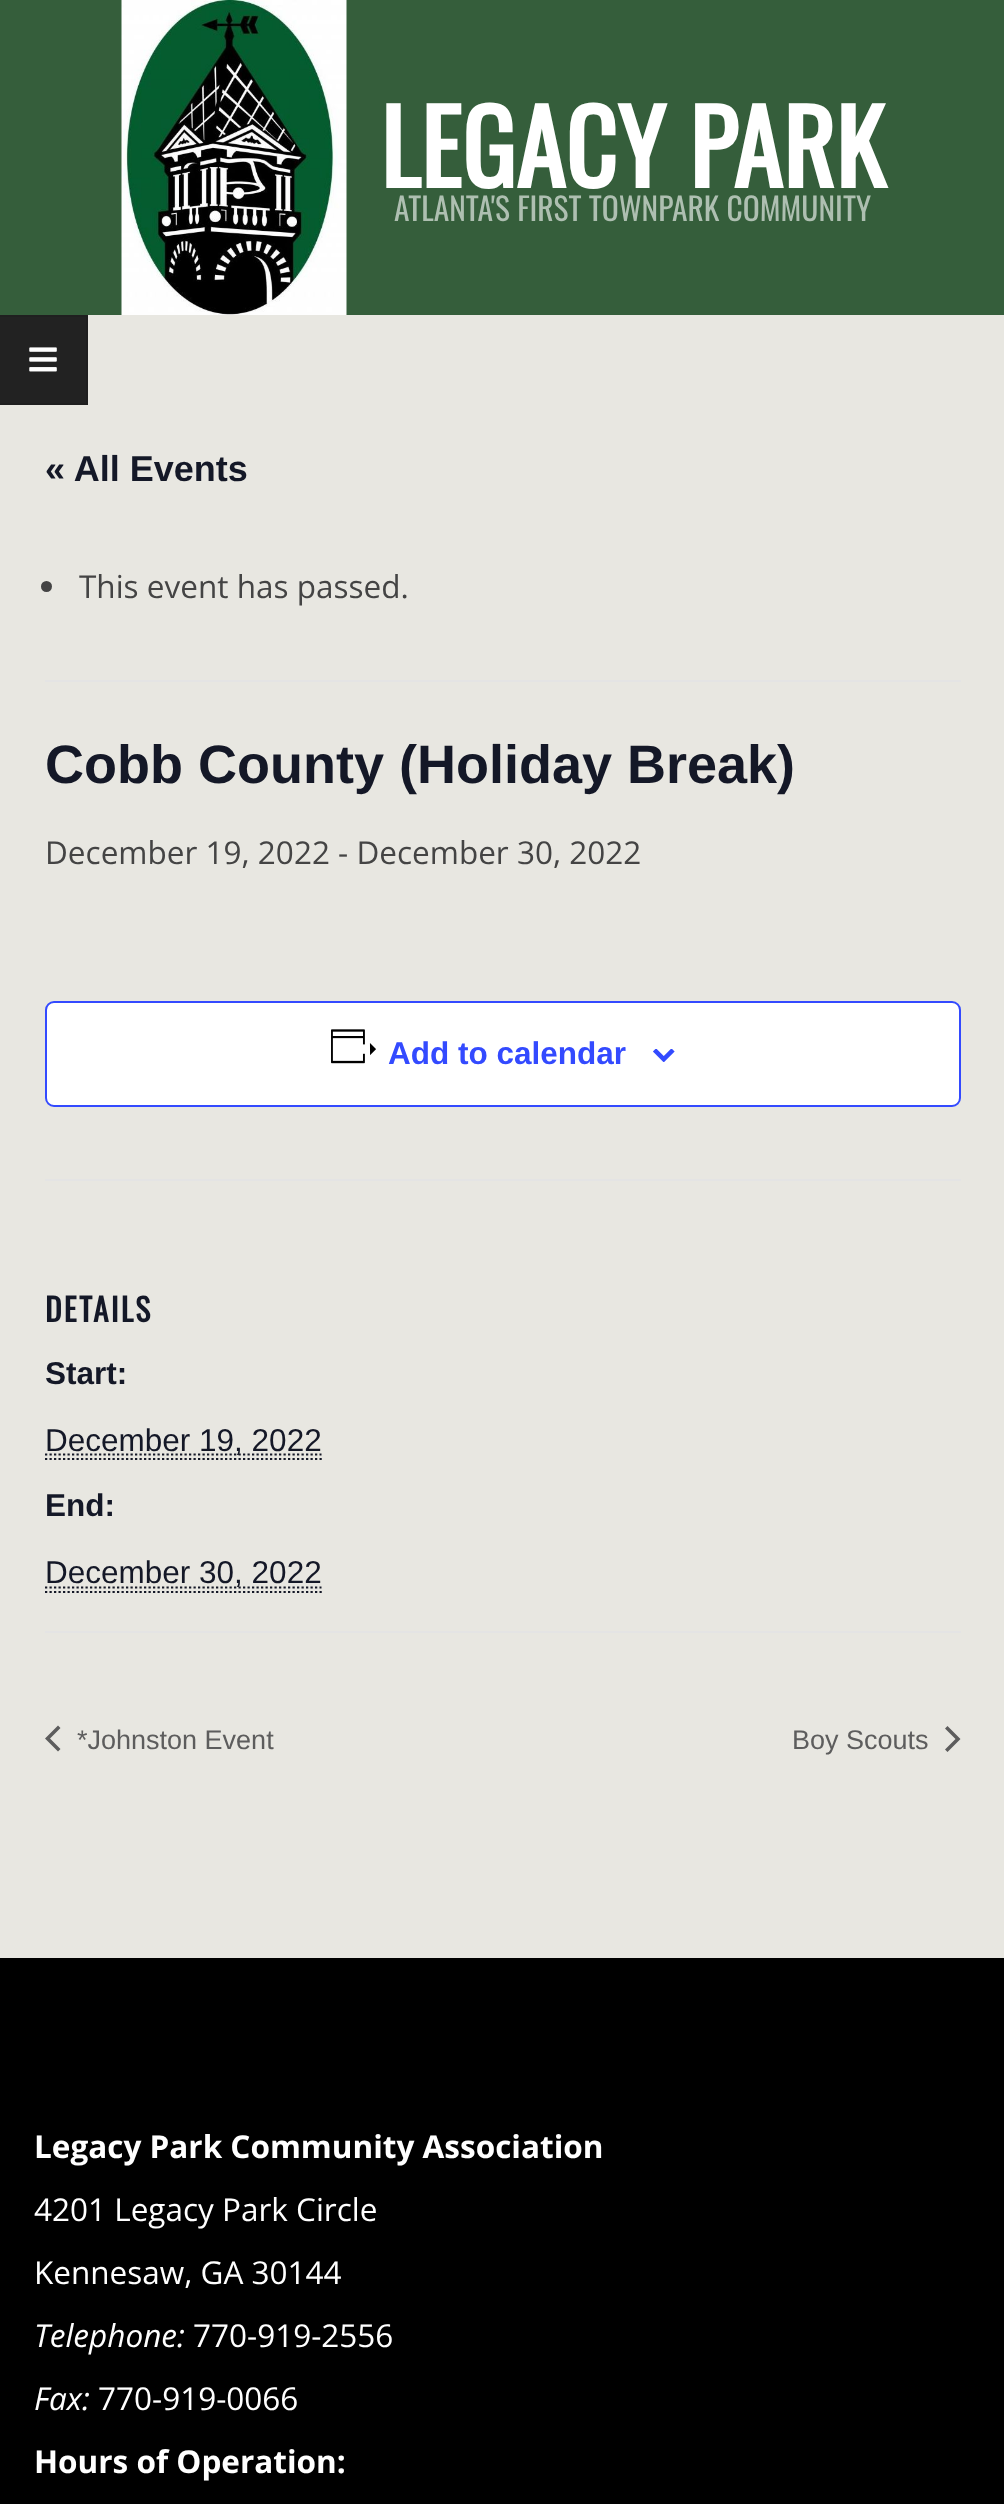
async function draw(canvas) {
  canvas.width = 1004;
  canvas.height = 2504;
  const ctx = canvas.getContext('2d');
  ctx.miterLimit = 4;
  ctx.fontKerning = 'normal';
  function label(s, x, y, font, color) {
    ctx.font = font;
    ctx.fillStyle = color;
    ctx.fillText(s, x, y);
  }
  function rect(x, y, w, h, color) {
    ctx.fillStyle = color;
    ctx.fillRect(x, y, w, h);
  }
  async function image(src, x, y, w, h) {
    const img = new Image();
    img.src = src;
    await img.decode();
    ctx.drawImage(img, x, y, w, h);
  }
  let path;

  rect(0, 0, 1004, 2504, '#e8e7e1');
  rect(0, 0, 1004, 315, '#355e3b');
  await image('assets/img1.png', 121, 0, 226, 315);
  label('LEGACY PARK', 380, 188, 'bold 101.25px Oswald', '#fff');
  label('ATLANTA\'S FIRST TOWNPARK COMMUNITY', 394, 221, '31.5px Oswald', '#aebfb1');
  rect(0, 315, 88, 90, '#222');
  ctx.fillStyle = '#1f1f1f';
  path = new Path2D('M0 315H88L86 317H0Z');
  ctx.fill(path);
  path = new Path2D('M88 315V405L86 403V317Z');
  ctx.fill(path);
  path = new Path2D('M88 405H0V403H86Z');
  ctx.fill(path);
  await image('assets/img2.png', 29, 347, 28, 25);
  label('« All Events', 45, 481, 'bold 36px Liberation Sans', '#141827');
  rect(45, 680, 916, 2, '#e4e4e4');
  ctx.fillStyle = '#444';
  ctx.beginPath();
  ctx.arc(46.5, 586.5, 5.5, 0, 2 * Math.PI);
  ctx.fill();
  label('This event has passed.', 79, 598, '31.5px Open Sans', '#444');
  label('Cobb County (Holiday Break)', 45, 783, 'bold 54px Liberation Sans', '#141827');
  label('December 19, 2022 - December 30, 2022', 45, 864, '31.5px Open Sans', '#444');
  ctx.fillStyle = '#fff';
  ctx.beginPath();
  ctx.roundRect(46, 1002, 914, 104, 8);
  ctx.fill();
  ctx.strokeStyle = '#334aff';
  ctx.lineWidth = 2;
  ctx.stroke();
  await image('assets/img3.png', 331, 1029, 45, 35);
  label('Add to calendar', 388, 1064, 'bold 31.5px Liberation Sans', '#334aff');
  await image('assets/img4.png', 653, 1049, 22, 13);
  rect(45, 1179, 916, 2, '#e4e4e4');
  ctx.letterSpacing = '2.25px';
  label('DETAILS', 45, 1322, 'bold 31.5px Oswald', '#141827');
  ctx.letterSpacing = '0px';
  label('Start:', 45, 1384, 'bold 31.5px Liberation Sans', '#141827');
  path = new Path2D('M45 1454.5H321.5');
  ctx.strokeStyle = '#141827';
  ctx.lineWidth = 2.2;
  ctx.setLineDash([2.25, 2.25]);
  ctx.stroke(path);
  label('December 19, 2022', 45, 1451, '31.5px Liberation Sans', '#141827');
  path = new Path2D('M45 1459H322');
  ctx.stroke(path);
  label('End:', 45, 1516, 'bold 31.5px Liberation Sans', '#141827');
  path = new Path2D('M45 1587.5H321.5');
  ctx.stroke(path);
  label('December 30, 2022', 45, 1583, '31.5px Liberation Sans', '#141827');
  path = new Path2D('M45 1592H322');
  ctx.stroke(path);
  rect(45, 1631, 916, 2, '#e4e4e4');
  ctx.fillStyle = '#5d5d5d';
  path = new Path2D('M60.5 1749L58 1751.5L45 1738.5L58 1725.5L60.5 1728L50 1738.5Z');
  ctx.fill(path);
  label('*Johnston Event', 77, 1749, '27px Liberation Sans', '#5d5d5d');
  label('Boy Scouts', 792, 1749, '27px Liberation Sans', '#5d5d5d');
  path = new Path2D('M945 1728.5L947.5 1726L960.5 1739L947.5 1752L945 1749.5L955.5 1739Z');
  ctx.fill(path);
  rect(0, 1958, 1004, 546, '#000');
  label('Legacy Park Community Association', 34, 2158, 'bold 31.5px Open Sans', '#fff');
  label('4201 Legacy Park Circle', 34, 2221, '31.5px Open Sans', '#fff');
  label('Kennesaw, GA 30144', 34, 2284, '31.5px Open Sans', '#fff');
  label('Telephone:', 34, 2347, 'italic 31.5px Open Sans', '#fff');
  label('770-919-2556', 193, 2347, '31.5px Open Sans', '#fff');
  label('Fax:', 34, 2410, 'italic 31.5px Open Sans', '#fff');
  label('770-919-0066', 98, 2410, '31.5px Open Sans', '#fff');
  label('Hours of Operation:', 34, 2473, 'bold 31.5px Open Sans', '#fff');
}

draw(document.querySelector('canvas'));
